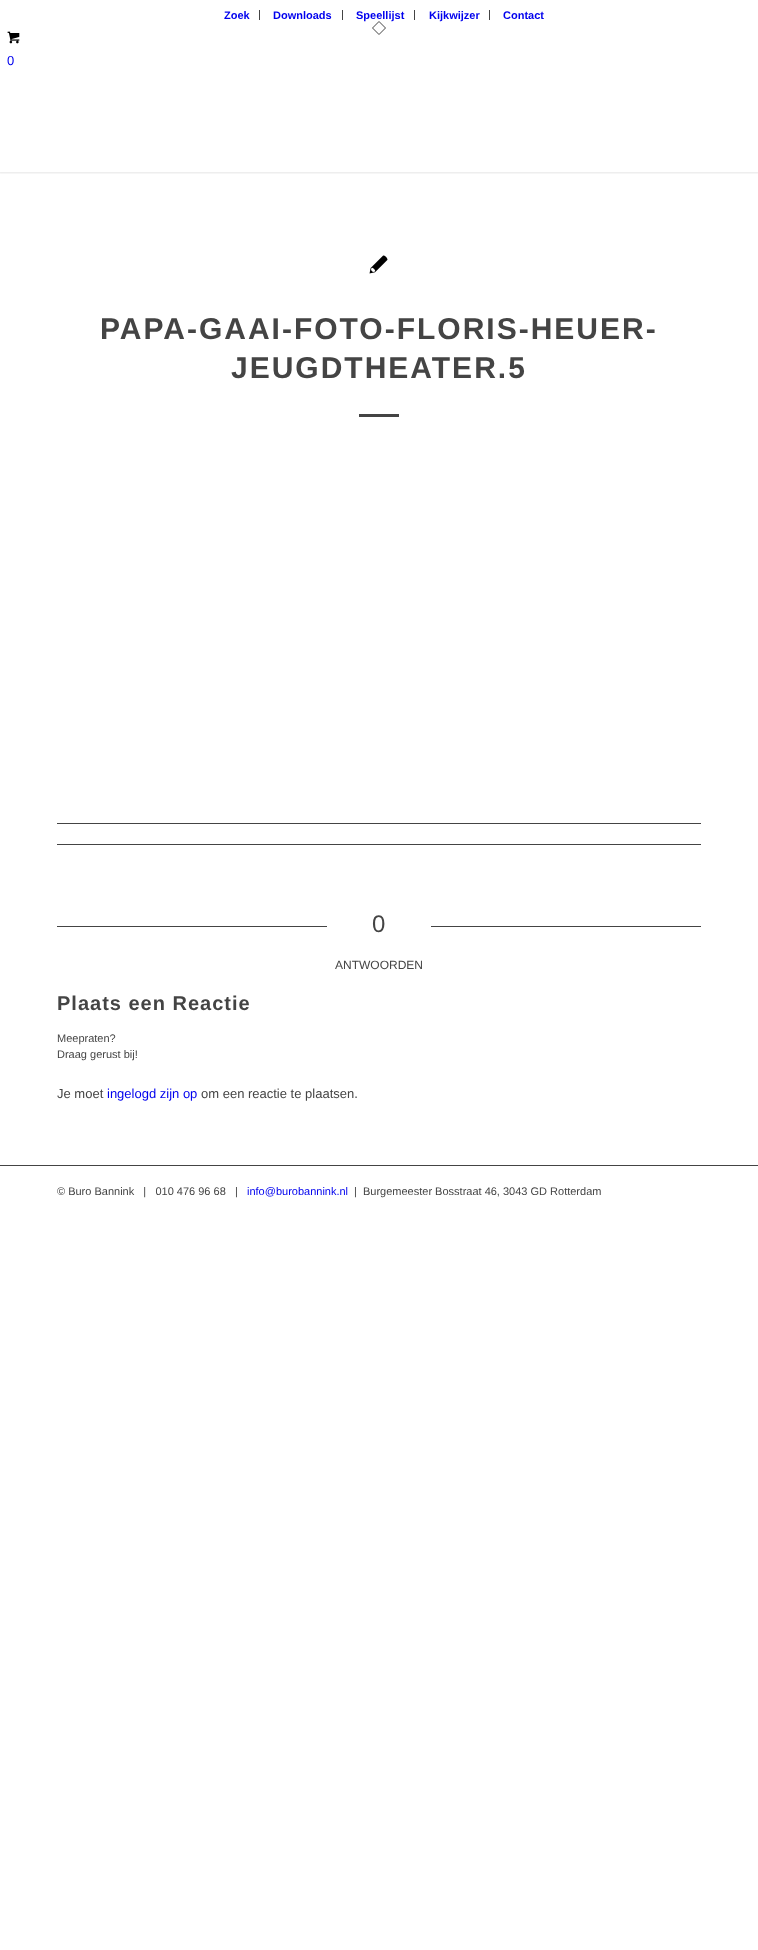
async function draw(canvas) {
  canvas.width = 758;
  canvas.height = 1950;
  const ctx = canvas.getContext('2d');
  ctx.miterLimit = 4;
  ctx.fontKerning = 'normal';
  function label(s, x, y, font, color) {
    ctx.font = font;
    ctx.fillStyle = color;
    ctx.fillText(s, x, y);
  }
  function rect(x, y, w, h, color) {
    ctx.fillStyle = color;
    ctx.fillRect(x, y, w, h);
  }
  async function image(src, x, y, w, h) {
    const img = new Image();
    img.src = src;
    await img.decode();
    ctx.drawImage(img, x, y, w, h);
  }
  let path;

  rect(0, 0, 758, 1950, '#fff');
  ctx.save();
  ctx.beginPath();
  ctx.rect(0, 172, 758, 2);
  ctx.clip();
  ctx.fillStyle = '#0000001a';
  ctx.filter = 'blur(1px)';
  ctx.beginPath();
  ctx.rect(-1, -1, 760, 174);
  ctx.fill();
  ctx.filter = 'none';
  ctx.restore();
  rect(259, 10, 1, 10, '#444');
  label('Zoek', 224, 19, 'bold 11px Liberation Sans', '#00e');
  rect(342, 10, 1, 10, '#444');
  label('Downloads', 273, 19, 'bold 11px Liberation Sans', '#00e');
  rect(414, 10, 1, 10, '#444');
  path = new Path2D('M379 21.5L385.5 28L379 34.5L372.5 28Z');
  ctx.strokeStyle = '#444';
  ctx.stroke(path);
  label('Speellijst', 356, 19, 'bold 11px Liberation Sans', '#00e');
  rect(489, 10, 1, 10, '#444');
  label('Kijkwijzer', 429, 19, 'bold 11px Liberation Sans', '#00e');
  label('Contact', 503, 19, 'bold 11px Liberation Sans', '#00e');
  await image('assets/img1.png', 7, 31, 13, 13);
  label('0', 7, 65, '13px Liberation Sans', '#00e');
  await image('assets/img2.png', 369, 255, 19, 19);
  ctx.letterSpacing = '2px';
  label('PAPA-GAAI-FOTO-FLORIS-HEUER-', 100, 339, 'bold 30px Liberation Sans', '#444');
  label('JEUGDTHEATER.5', 231, 378, 'bold 30px Liberation Sans', '#444');
  rect(359, 414, 40, 3, '#444');
  rect(57, 823, 644, 1, '#444');
  rect(57, 844, 644, 1, '#444');
  rect(57, 926, 270, 1, '#444');
  ctx.letterSpacing = '0px';
  label('0', 372, 932, '24px Liberation Sans', '#444');
  rect(431, 926, 270, 1, '#444');
  label('ANTWOORDEN', 335, 969, '12px Liberation Sans', '#444');
  ctx.letterSpacing = '1px';
  label('Plaats een Reactie', 57, 1010, 'bold 20px Liberation Sans', '#444');
  ctx.letterSpacing = '0px';
  label('Meepraten?', 57, 1042, '11px Liberation Sans', '#444');
  label('Draag gerust bij!', 57, 1058, '11px Liberation Sans', '#444');
  label('Je moet', 57, 1098, '13px Liberation Sans', '#444');
  label('ingelogd zijn op', 107, 1098, '13px Liberation Sans', '#00e');
  label('om een reactie te plaatsen.', 201, 1098, '13px Liberation Sans', '#444');
  rect(0, 1165, 758, 1, '#444');
  label('© Buro Bannink   |   010 476 96 68   |', 57, 1195, '11px Liberation Sans', '#444');
  label('info@burobannink.nl', 247, 1195, '11px Liberation Sans', '#00e');
  label('|  Burgemeester Bosstraat 46, 3043 GD Rotterdam', 354, 1195, '11px Liberation Sans', '#444');
}

draw(document.querySelector('canvas'));
